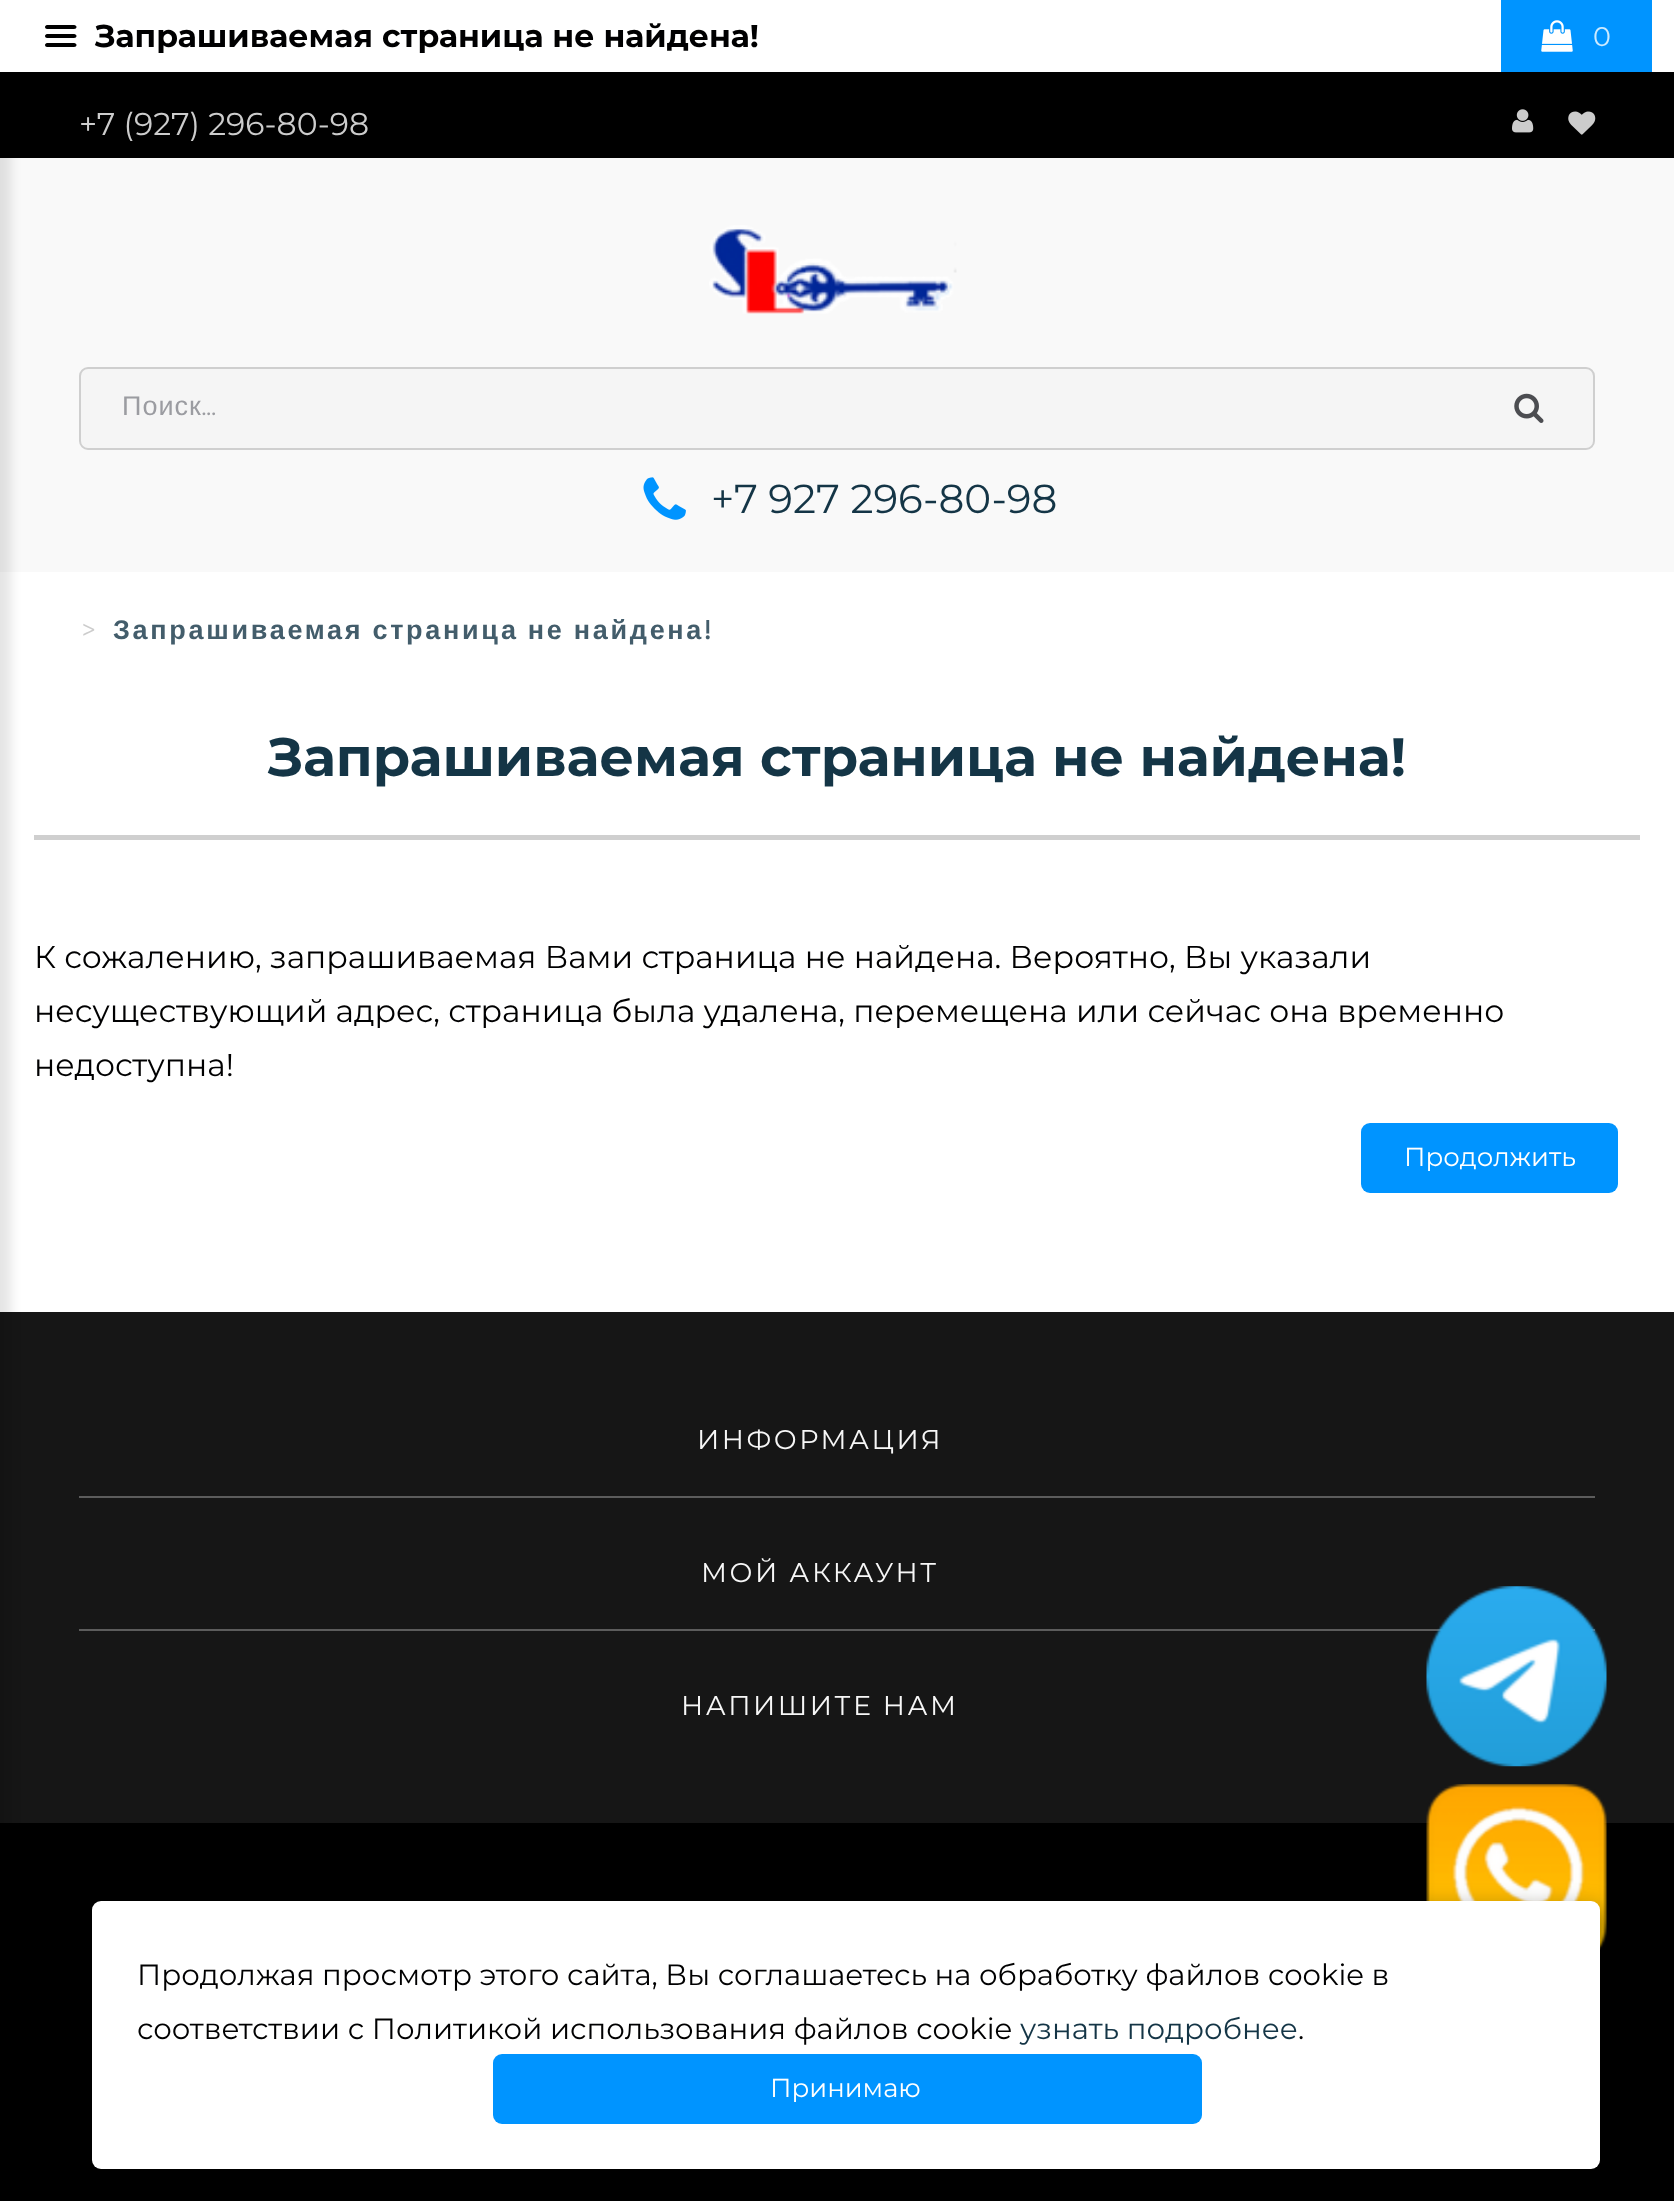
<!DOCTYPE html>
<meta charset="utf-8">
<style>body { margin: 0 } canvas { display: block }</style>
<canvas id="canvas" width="1674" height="2201"></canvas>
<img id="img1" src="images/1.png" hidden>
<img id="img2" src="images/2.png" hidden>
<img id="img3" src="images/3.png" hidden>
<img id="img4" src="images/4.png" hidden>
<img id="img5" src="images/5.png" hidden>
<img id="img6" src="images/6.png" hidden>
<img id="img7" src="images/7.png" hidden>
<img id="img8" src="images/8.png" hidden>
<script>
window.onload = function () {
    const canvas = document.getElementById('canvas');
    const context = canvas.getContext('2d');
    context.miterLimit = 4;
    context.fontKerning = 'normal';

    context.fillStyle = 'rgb(0, 0, 0)';
    context.fillRect(0, 0, 1674, 2201);
    context.fillStyle = 'rgb(255, 255, 255)';
    context.fillRect(0, 572, 1674, 740);
    context.fillStyle = 'rgb(249, 249, 249)';
    context.fillRect(0, 158, 1674, 414);
    context.fillStyle = 'rgb(22, 22, 22)';
    context.fillRect(0, 1312, 1674, 511);
    context.fillStyle = 'rgba(0, 0, 0, 0.1)';
    context.filter = 'blur(5.5px)';
    context.beginPath();
    context.rect(-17, -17, 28, 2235);
    context.fill();
    context.filter = 'none';
    context.fillStyle = 'rgb(255, 255, 255)';
    context.fillRect(0, 0, 1674, 72);
    context.fillStyle = 'rgb(0, 0, 0)';
    context.beginPath();
    context.moveTo(74, 38);
    context.lineTo(47, 38);
    context.bezierCurveTo(46, 38, 45, 37, 45, 36);
    context.bezierCurveTo(45, 35, 46, 34, 47, 34);
    context.lineTo(74, 34);
    context.bezierCurveTo(75.5, 34, 76.5, 35, 76.5, 36);
    context.bezierCurveTo(76.5, 37, 75.5, 38, 74, 38);
    context.closePath();
    context.moveTo(74, 47);
    context.lineTo(47, 47);
    context.bezierCurveTo(46, 47, 45, 46, 45, 45);
    context.bezierCurveTo(45, 44, 46, 43, 47, 43);
    context.lineTo(74, 43);
    context.bezierCurveTo(75.5, 43, 76.5, 44, 76.5, 45);
    context.bezierCurveTo(76.5, 46, 75.5, 47, 74, 47);
    context.closePath();
    context.moveTo(74, 29);
    context.lineTo(47, 29);
    context.bezierCurveTo(46, 29, 45, 28, 45, 27);
    context.bezierCurveTo(45, 26, 46, 25, 47, 25);
    context.lineTo(74, 25);
    context.bezierCurveTo(75.5, 25, 76.5, 26, 76.5, 27);
    context.bezierCurveTo(76.5, 28, 75.5, 29, 74, 29);
    context.closePath();
    context.fill();
    context.fillStyle = 'rgb(0, 148, 255)';
    context.fillRect(1501, 0, 151, 72);
    context.drawImage(document.getElementById('img1'), 1541, 20, 32, 32);
    context.drawImage(document.getElementById('img2'), 1512, 109, 22, 24);
    context.drawImage(document.getElementById('img3'), 1568, 111, 28, 24);
    context.drawImage(document.getElementById('img4'), 709, 225, 248, 89);
    context.fillStyle = 'rgb(245, 245, 245)';
    context.beginPath();
    context.roundRect(80, 368, 1514, 81, 8);
    context.fill();
    context.strokeStyle = 'rgb(207, 207, 207)';
    context.lineWidth = 2;
    context.stroke();
    context.drawImage(document.getElementById('img5'), 1514, 393, 30, 30);
    context.drawImage(document.getElementById('img6'), 643, 477, 43, 43);
    context.fillStyle = 'rgb(207, 207, 207)';
    context.fillRect(34, 835, 1606, 5);
    context.fillStyle = 'rgb(0, 148, 255)';
    context.beginPath();
    context.roundRect(1361, 1123, 257, 70, 9);
    context.fill();
    context.fillStyle = 'rgb(92, 92, 92)';
    context.fillRect(79, 1496, 1516, 2);
    context.fillRect(79, 1629, 1516, 2);
    context.drawImage(document.getElementById('img7'), 1426, 1586, 181, 181);
    context.drawImage(document.getElementById('img8'), 1426, 1784, 181, 166);
    context.fillStyle = 'rgba(0, 0, 0, 0.4)';
    context.filter = 'blur(11px)';
    context.beginPath();
    context.roundRect(97, 1908, 1507, 268, 9);
    context.fill();
    context.filter = 'none';
    context.fillStyle = 'rgb(255, 255, 255)';
    context.beginPath();
    context.roundRect(92, 1901, 1508, 268, 9);
    context.fill();
    context.fillStyle = 'rgb(0, 148, 255)';
    context.beginPath();
    context.roundRect(493, 2054, 709, 70, 9);
    context.fill();
    context.font = 'bold 31.5px Montserrat';
    context.fillStyle = 'rgb(0, 0, 1)';
    context.fillText('Запрашиваемая страница не найдена!', 95, 47);
    context.font = '27px Montserrat';
    context.fillStyle = 'rgb(204, 234, 255)';
    context.fillText('0', 1593, 46);
    context.font = '31.5px Montserrat';
    context.fillStyle = 'rgb(204, 204, 204)';
    context.fillText('+7 (927) 296-80-98', 79, 135);
    context.letterSpacing = '1px';
    context.font = '27px Liberation Sans';
    context.fillStyle = 'rgb(155, 156, 161)';
    context.fillText('Поиск', 122, 415);
    context.font = '300 27px Hind';
    context.fillText('...', 202, 415);
    context.letterSpacing = '0px';
    context.font = '40.5px Montserrat';
    context.fillStyle = 'rgb(20, 53, 70)';
    context.fillText('+7 927 296-80-98', 711, 513);
    context.letterSpacing = '2.7px';
    context.font = '300 27px Hind';
    context.fillStyle = 'rgb(204, 204, 204)';
    context.fillText('>', 82, 639);
    context.wordSpacing = '-1px';
    context.font = 'bold 27px Liberation Sans';
    context.fillStyle = 'rgb(67, 93, 107)';
    context.fillText('Запрашиваемая страница не найдена', 113, 639);
    context.wordSpacing = '0px';
    context.font = 'bold 27px Hind';
    context.fillText('!', 704, 639);
    context.letterSpacing = '0px';
    context.font = 'bold 54px Montserrat';
    context.fillStyle = 'rgb(20, 53, 70)';
    context.fillText('Запрашиваемая страница не найдена!', 268, 776);
    context.font = '31.5px Montserrat';
    context.fillStyle = 'rgb(0, 0, 1)';
    context.fillText('К сожалению, запрашиваемая Вами страница не найдена. Вероятно, Вы указали', 34, 968);
    context.fillText('несуществующий адрес, страница была удалена, перемещена или сейчас она временно', 34, 1022);
    context.fillText('недоступна!', 34, 1076);
    context.font = '26px Montserrat';
    context.fillStyle = 'rgb(255, 255, 255)';
    context.fillText('Продолжить', 1404, 1166);
    context.letterSpacing = '2.5px';
    context.font = '27px Montserrat';
    context.fillStyle = 'rgb(247, 247, 247)';
    context.fillText('ИНФОРМАЦИЯ', 697, 1449);
    context.fillText('МОЙ АККАУНТ', 701, 1582);
    context.fillText('НАПИШИТЕ НАМ', 681, 1715);
    context.letterSpacing = '0px';
    context.font = '29.25px Montserrat';
    context.fillStyle = 'rgb(0, 0, 1)';
    context.fillText('Продолжая просмотр этого сайта, Вы соглашаетесь на обработку файлов cookie в', 137, 1985);
    context.fillText('соответствии с Политикой использования файлов cookie', 137, 2039);
    context.fillStyle = 'rgb(20, 53, 70)';
    context.fillText('узнать подробнее', 1020, 2039);
    context.fillStyle = 'rgb(0, 0, 1)';
    context.fillText('.', 1298, 2039);
    context.font = '26px Montserrat';
    context.fillStyle = 'rgb(255, 255, 255)';
    context.fillText('Принимаю', 770, 2097);
};
</script>
